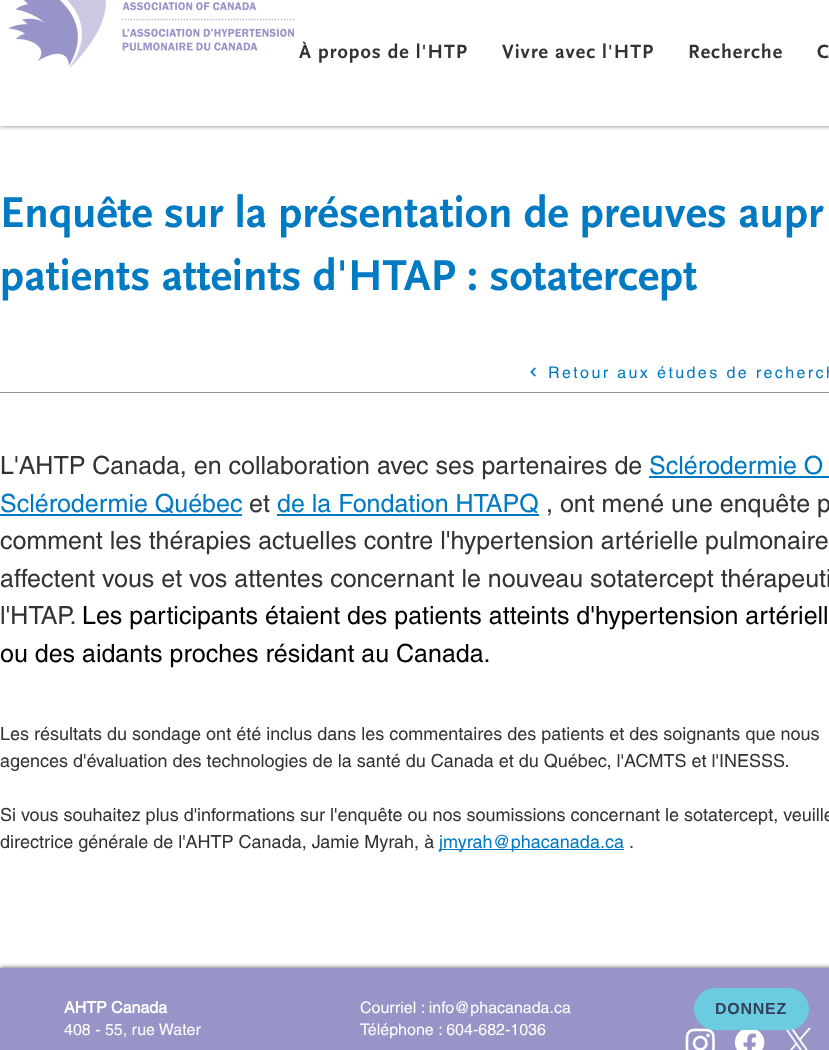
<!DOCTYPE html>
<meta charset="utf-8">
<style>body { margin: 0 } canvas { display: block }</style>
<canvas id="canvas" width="829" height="1050"></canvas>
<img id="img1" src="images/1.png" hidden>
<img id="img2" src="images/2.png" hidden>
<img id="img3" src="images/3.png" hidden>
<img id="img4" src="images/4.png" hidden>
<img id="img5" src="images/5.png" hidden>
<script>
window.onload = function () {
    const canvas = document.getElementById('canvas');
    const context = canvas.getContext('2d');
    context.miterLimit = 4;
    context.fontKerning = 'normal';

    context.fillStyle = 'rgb(255, 255, 255)';
    context.fillRect(0, 0, 829, 1050);
    context.save();
    context.beginPath();
    context.rect(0, 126, 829, 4);
    context.clip();
    context.fillStyle = 'rgba(0, 0, 0, 0.5)';
    context.filter = 'blur(2.5px)';
    context.beginPath();
    context.rect(0, -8, 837, 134);
    context.fill();
    context.filter = 'none';
    context.restore();
    context.drawImage(document.getElementById('img1'), 8, 0, 286, 69);
    context.drawImage(document.getElementById('img2'), 530, 367, 6, 10);
    context.fillStyle = 'rgb(148, 147, 147)';
    context.fillRect(0, 392, 829, 1);
    context.fillStyle = 'rgb(0, 121, 194)';
    context.fillRect(649, 476, 180, 2);
    context.fillRect(0, 514, 242, 2);
    context.fillRect(277, 514, 262, 2);
    context.fillRect(439, 849, 185, 1);
    context.fillStyle = 'rgba(0, 0, 0, 0.7)';
    context.filter = 'blur(2.5px)';
    context.beginPath();
    context.rect(0, 968, 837, 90);
    context.fill();
    context.filter = 'none';
    context.fillStyle = 'rgb(152, 148, 199)';
    context.fillRect(0, 968, 829, 82);
    context.drawImage(document.getElementById('img3'), 685, 1028, 30, 22);
    context.drawImage(document.getElementById('img4'), 734, 1030, 31, 20);
    context.drawImage(document.getElementById('img5'), 786, 1027, 25, 23);
    context.fillStyle = 'rgb(107, 203, 225)';
    context.beginPath();
    context.roundRect(694, 988, 115, 42, 21);
    context.fill();
    context.letterSpacing = '1px';
    context.font = 'bold 20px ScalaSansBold';
    context.fillStyle = 'rgb(51, 51, 51)';
    context.fillText('À propos de l\'HTP', 299, 58);
    context.fillText('Vivre avec l\'HTP', 502, 58);
    context.fillText('Recherche', 688, 58);
    context.fillText('C', 817, 58);
    context.letterSpacing = '0px';
    context.font = 'bold 45px ScalaSansBold';
    context.fillStyle = 'rgb(0, 122, 194)';
    context.fillText('Enquête sur la présentation de preuves aupr', 0, 227);
    context.fillText('patients atteints d\'HTAP : sotatercept', 0, 290);
    context.letterSpacing = '2.4px';
    context.font = '16px helvetica';
    context.fillText('Retour aux études de recherch', 548, 378);
    context.letterSpacing = '0px';
    context.font = '25px helvetica';
    context.fillStyle = 'rgb(51, 51, 51)';
    context.fillText('L\'AHTP Canada, en collaboration avec ses partenaires de', 0, 474);
    context.fillStyle = 'rgb(0, 122, 194)';
    context.fillText('Sclérodermie O', 649, 474);
    context.fillText('Sclérodermie Québec', 0, 512);
    context.fillStyle = 'rgb(51, 51, 51)';
    context.fillText('et', 249, 512);
    context.fillStyle = 'rgb(0, 122, 194)';
    context.fillText('de la Fondation HTAPQ', 277, 512);
    context.fillStyle = 'rgb(51, 51, 51)';
    context.fillText(', ont mené une enquête p', 546, 512);
    context.fillText('comment les thérapies actuelles contre l\'hypertension artérielle pulmonaire', 0, 549);
    context.fillText('affectent vous et vos attentes concernant le nouveau sotatercept thérapeuti', 0, 587);
    context.fillText('l\'HTAP.', 0, 624);
    context.fillStyle = 'rgb(0, 0, 0)';
    context.fillText('Les participants étaient des patients atteints d\'hypertension artériell', 82, 624);
    context.fillText('ou des aidants proches résidant au Canada.', 0, 662);
    context.font = '18px helvetica';
    context.fillStyle = 'rgb(51, 51, 51)';
    context.fillText('Les résultats du sondage ont été inclus dans les commentaires des patients et des soignants que nous', 0, 740);
    context.fillText('agences d\'évaluation des technologies de la santé du Canada et du Québec, l\'ACMTS et l\'INESSS.', 0, 767);
    context.fillText('Si vous souhaitez plus d\'informations sur l\'enquête ou nos soumissions concernant le sotatercept, veuille', 0, 821);
    context.fillText('directrice générale de l\'AHTP Canada, Jamie Myrah, à', 0, 848);
    context.fillStyle = 'rgb(0, 122, 194)';
    context.fillText('jmyrah@phacanada.ca', 439, 848);
    context.fillStyle = 'rgb(51, 51, 51)';
    context.fillText('.', 629, 848);
    context.font = 'bold 16px helvetica';
    context.fillStyle = 'rgb(255, 255, 255)';
    context.fillText('AHTP Canada', 64, 1013);
    context.font = '16px helvetica';
    context.fillText('408 - 55, rue Water', 64, 1035);
    context.fillText('Courriel : info@phacanada.ca', 360, 1013);
    context.fillText('Téléphone : 604-682-1036', 360, 1035);
    context.letterSpacing = '0.75px';
    context.font = 'bold 16px Liberation Sans';
    context.fillStyle = 'rgb(50, 65, 88)';
    context.fillText('DONNEZ', 715, 1014);
};
</script>
